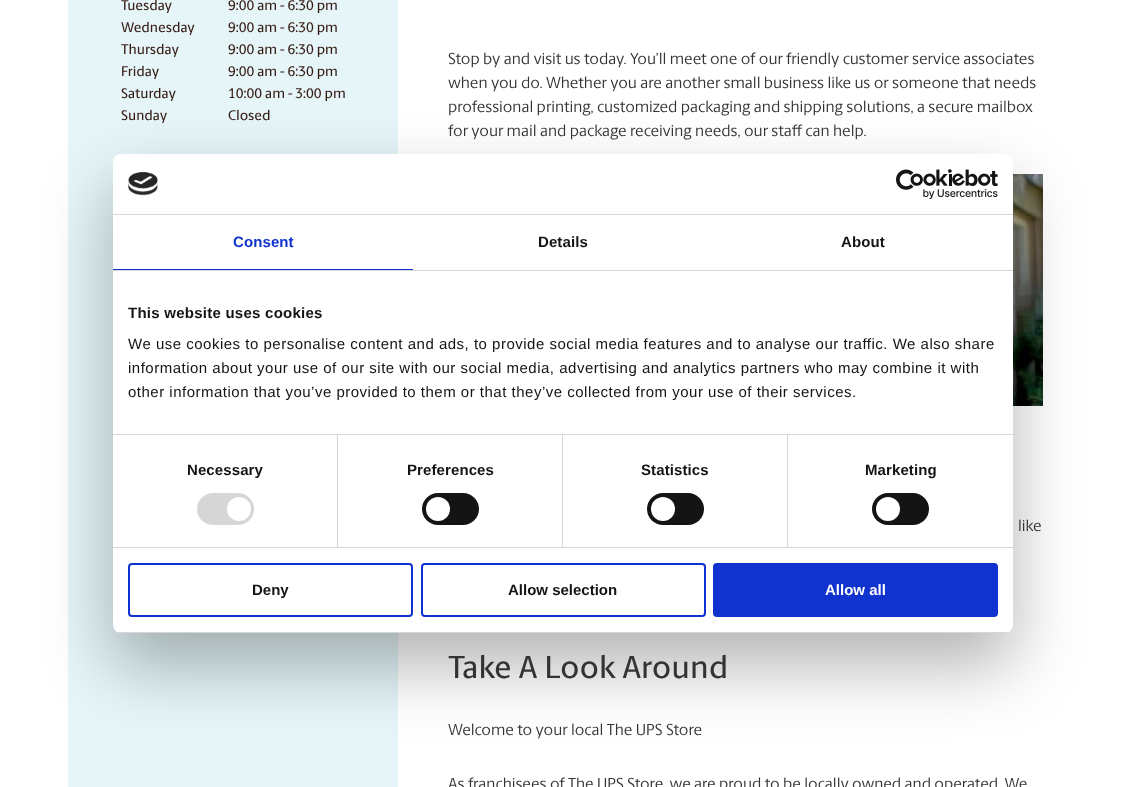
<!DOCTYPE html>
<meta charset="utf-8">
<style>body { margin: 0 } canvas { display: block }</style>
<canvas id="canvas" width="1126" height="787"></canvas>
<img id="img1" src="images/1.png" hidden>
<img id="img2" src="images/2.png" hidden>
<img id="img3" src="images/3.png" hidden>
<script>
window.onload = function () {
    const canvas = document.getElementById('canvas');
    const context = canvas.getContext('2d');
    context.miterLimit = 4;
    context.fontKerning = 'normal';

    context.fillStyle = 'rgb(255, 255, 255)';
    context.fillRect(0, 0, 1126, 787);
    context.fillStyle = 'rgb(229, 245, 248)';
    context.fillRect(68, 0, 330, 787);
    context.drawImage(document.getElementById('img1'), 1013, 174, 30, 232);
    context.fillStyle = 'rgba(0, 0, 0, 0.3)';
    context.filter = 'blur(34px)';
    context.beginPath();
    context.roundRect(113, 186, 900, 479, 8);
    context.fill();
    context.filter = 'none';
    context.fillStyle = 'rgb(255, 255, 255)';
    context.beginPath();
    context.roundRect(113, 154, 900, 479, 8);
    context.fill();
    context.fillStyle = 'rgb(214, 214, 214)';
    context.fillRect(113, 214, 900, 1);
    context.drawImage(document.getElementById('img2'), 128, 172, 30, 24);
    context.drawImage(document.getElementById('img3'), 896, 169, 102, 30);
    context.fillRect(113, 270, 900, 1);
    context.fillStyle = 'rgb(16, 50, 207)';
    context.fillRect(113, 269, 300, 1);
    context.fillStyle = 'rgb(214, 214, 214)';
    context.fillRect(113, 434, 900, 1);
    context.fillRect(113, 547, 900, 1);
    context.fillRect(337, 435, 1, 112);
    context.beginPath();
    context.roundRect(197, 493, 57, 32, 16);
    context.fill();
    context.fillStyle = 'rgb(255, 255, 255)';
    context.beginPath();
    context.arc(239, 509, 12, 0, 2 * Math.PI);
    context.fill();
    context.fillStyle = 'rgb(214, 214, 214)';
    context.fillRect(562, 435, 1, 112);
    context.fillStyle = 'rgb(20, 20, 20)';
    context.beginPath();
    context.roundRect(422, 493, 57, 32, 16);
    context.fill();
    context.fillStyle = 'rgb(255, 255, 255)';
    context.beginPath();
    context.arc(438, 509, 12, 0, 2 * Math.PI);
    context.fill();
    context.fillStyle = 'rgb(214, 214, 214)';
    context.fillRect(787, 435, 1, 112);
    context.fillStyle = 'rgb(20, 20, 20)';
    context.beginPath();
    context.roundRect(647, 493, 57, 32, 16);
    context.fill();
    context.fillStyle = 'rgb(255, 255, 255)';
    context.beginPath();
    context.arc(663, 509, 12, 0, 2 * Math.PI);
    context.fill();
    context.fillStyle = 'rgb(20, 20, 20)';
    context.beginPath();
    context.roundRect(872, 493, 57, 32, 16);
    context.fill();
    context.fillStyle = 'rgb(255, 255, 255)';
    context.beginPath();
    context.arc(888, 509, 12, 0, 2 * Math.PI);
    context.fill();
    context.save();
    context.beginPath();
    context.roundRect(113, 154, 900, 479, 8);
    context.clip();
    context.fillStyle = 'rgb(214, 214, 214)';
    context.fillRect(113, 632, 900, 1);
    context.restore();
    context.beginPath();
    context.roundRect(129, 564, 283, 52, 3);
    context.strokeStyle = 'rgb(16, 50, 207)';
    context.lineWidth = 2;
    context.stroke();
    context.beginPath();
    context.roundRect(422, 564, 283, 52, 3);
    context.stroke();
    context.fillStyle = 'rgb(16, 50, 207)';
    context.beginPath();
    context.roundRect(714, 564, 283, 52, 3);
    context.fill();
    context.stroke();
    context.font = '500 14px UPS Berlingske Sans';
    context.fillStyle = 'rgb(53, 28, 20)';
    context.fillText('Tuesday', 121, 10);
    context.fillText('9:00 am - 6:30 pm', 228, 10);
    context.fillText('Wednesday', 121, 32);
    context.fillText('9:00 am - 6:30 pm', 228, 32);
    context.fillText('Thursday', 121, 54);
    context.fillText('9:00 am - 6:30 pm', 228, 54);
    context.fillText('Friday', 121, 76);
    context.fillText('9:00 am - 6:30 pm', 228, 76);
    context.fillText('Saturday', 121, 98);
    context.fillText('10:00 am - 3:00 pm', 228, 98);
    context.fillText('Sunday', 121, 120);
    context.fillText('Closed', 228, 120);
    context.font = '16px UPS Berlingske Sans';
    context.fillStyle = 'rgb(51, 51, 51)';
    context.fillText('Stop by and visit us today. You’ll meet one of our friendly customer service associates', 448, 64);
    context.fillText('when you do. Whether you are another small business like us or someone that needs', 448, 88);
    context.fillText('professional printing, customized packaging and shipping solutions, a secure mailbox', 448, 112);
    context.fillText('for your mail and package receiving needs, our staff can help.', 448, 136);
    context.fillText('like', 1018, 531);
    context.font = '500 32px UPS Berlingske Sans';
    context.fillText('Take A Look Around', 448, 678);
    context.font = '16px UPS Berlingske Sans';
    context.fillText('Welcome to your local The UPS Store', 448, 735);
    context.fillText('As franchisees of The UPS Store, we are proud to be locally owned and operated. We', 448, 789);
    context.letterSpacing = '0.1px';
    context.font = 'bold 15px Liberation Sans';
    context.fillStyle = 'rgb(16, 50, 207)';
    context.fillText('Consent', 233, 247);
    context.fillStyle = 'rgb(20, 20, 20)';
    context.fillText('Details', 538, 247);
    context.fillText('About', 841, 247);
    context.letterSpacing = '0.25px';
    context.fillText('This website uses cookies', 128, 318);
    context.letterSpacing = '0.5px';
    context.font = '15px Liberation Sans';
    context.fillText('We use cookies to personalise content and ads, to provide social media features and to analyse our traffic. We also share', 128, 349);
    context.fillText('information about your use of our site with our social media, advertising and analytics partners who may combine it with', 128, 373);
    context.fillText('other information that you’ve provided to them or that they’ve collected from your use of their services.', 128, 397);
    context.letterSpacing = '0.1px';
    context.font = 'bold 15px Liberation Sans';
    context.fillText('Necessary', 187, 475);
    context.fillText('Preferences', 407, 475);
    context.fillText('Statistics', 641, 475);
    context.fillText('Marketing', 865, 475);
    context.letterSpacing = '0px';
    context.fillText('Deny', 252, 595);
    context.fillText('Allow selection', 508, 595);
    context.fillStyle = 'rgb(255, 255, 255)';
    context.fillText('Allow all', 825, 595);
};
</script>
